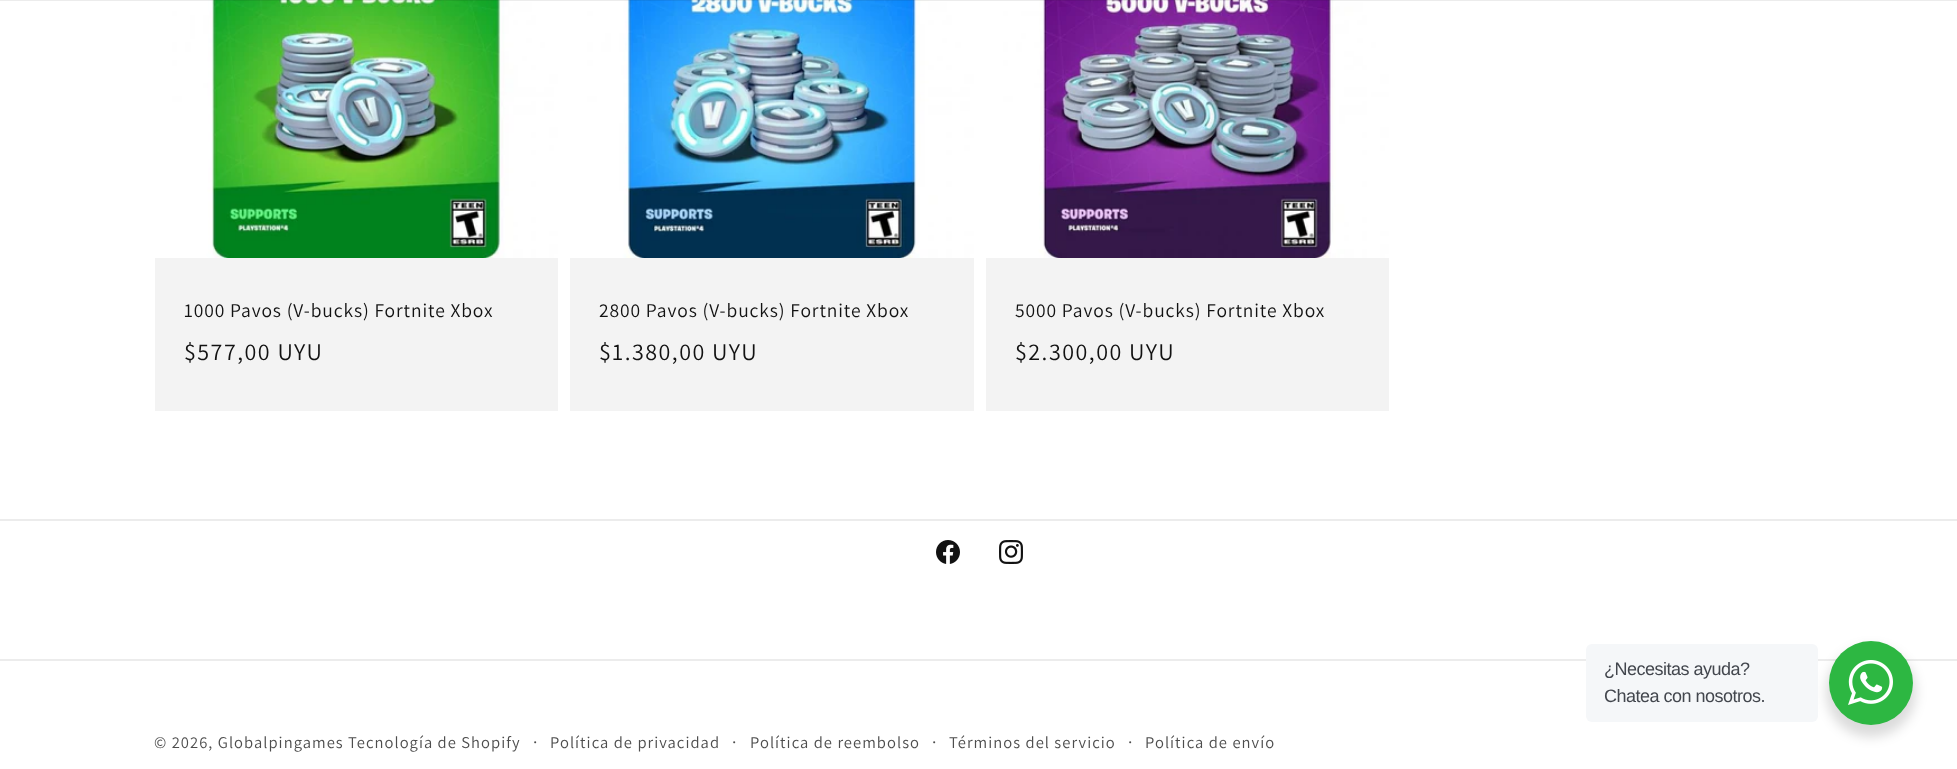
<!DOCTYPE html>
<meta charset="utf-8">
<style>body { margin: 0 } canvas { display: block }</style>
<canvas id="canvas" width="1957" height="769"></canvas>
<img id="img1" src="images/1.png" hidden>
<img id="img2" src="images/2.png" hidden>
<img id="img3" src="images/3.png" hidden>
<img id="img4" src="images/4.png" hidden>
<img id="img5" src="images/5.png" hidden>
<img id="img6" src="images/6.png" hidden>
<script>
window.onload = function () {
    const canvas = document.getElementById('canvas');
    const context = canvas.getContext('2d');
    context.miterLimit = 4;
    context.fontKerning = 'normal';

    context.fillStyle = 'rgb(255, 255, 255)';
    context.fillRect(0, 0, 1957, 769);
    context.drawImage(document.getElementById('img1'), 155, 0, 403, 258);
    context.drawImage(document.getElementById('img2'), 570, 0, 404, 258);
    context.drawImage(document.getElementById('img3'), 986, 0, 403, 258);
    context.fillStyle = 'rgba(18, 18, 18, 0.08)';
    context.fillRect(0, 0, 1957, 1);
    context.fillStyle = 'rgb(243, 243, 243)';
    context.fillRect(155, 258, 403, 153);
    context.fillRect(570, 258, 404, 153);
    context.fillRect(986, 258, 403, 153);
    context.fillStyle = 'rgb(236, 236, 236)';
    context.fillRect(0, 659, 1957, 2);
    context.fillStyle = 'rgba(0, 0, 0, 0.14)';
    context.filter = 'blur(6px)';
    context.beginPath();
    context.roundRect(1826, 647, 90, 90, 45);
    context.fill();
    context.filter = 'none';
    context.fillStyle = 'rgb(245, 247, 249)';
    context.beginPath();
    context.roundRect(1586, 644, 232, 78, 6);
    context.fill();
    context.fillStyle = 'rgb(45, 183, 66)';
    context.beginPath();
    context.arc(1871, 683, 42, 0, 2 * Math.PI);
    context.fill();
    context.drawImage(document.getElementById('img4'), 1848, 660, 45, 45);
    context.fillStyle = 'rgb(236, 236, 236)';
    context.fillRect(0, 519, 1957, 2);
    context.drawImage(document.getElementById('img5'), 936, 540, 24, 24);
    context.drawImage(document.getElementById('img6'), 999, 540, 24, 24);
    context.letterSpacing = '0.9px';
    context.font = '19.5px Assistant';
    context.fillStyle = 'rgb(18, 18, 18)';
    context.fillText('1000 Pavos (V-bucks) Fortnite Xbox', 184, 317);
    context.letterSpacing = '1.5px';
    context.font = '24px Assistant';
    context.fillText('$577,00 UYU', 184, 360);
    context.letterSpacing = '0.9px';
    context.font = '19.5px Assistant';
    context.fillText('2800 Pavos (V-bucks) Fortnite Xbox', 599, 317);
    context.letterSpacing = '1.5px';
    context.font = '24px Assistant';
    context.fillText('$1.380,00 UYU', 599, 360);
    context.letterSpacing = '0.9px';
    context.font = '19.5px Assistant';
    context.fillText('5000 Pavos (V-bucks) Fortnite Xbox', 1015, 317);
    context.letterSpacing = '1.5px';
    context.font = '24px Assistant';
    context.fillText('$2.300,00 UYU', 1015, 360);
    context.letterSpacing = '-0.5px';
    context.font = '18px Liberation Sans';
    context.fillStyle = 'rgb(67, 71, 78)';
    context.fillText('¿Necesitas ayuda?', 1604, 675);
    context.fillText('Chatea con nosotros.', 1604, 702);
    context.letterSpacing = '1.05px';
    context.font = '16.5px Assistant';
    context.fillStyle = 'rgb(77, 77, 77)';
    context.fillText('© 2026, Globalpingames', 154, 748);
    context.fillText('Tecnología de Shopify', 348, 748);
    context.font = '18px Assistant';
    context.fillText('·', 533, 748);
    context.font = '16.5px Assistant';
    context.fillText('Política de privacidad', 550, 748);
    context.font = '18px Assistant';
    context.fillText('·', 732, 748);
    context.font = '16.5px Assistant';
    context.fillText('Política de reembolso', 750, 748);
    context.font = '18px Assistant';
    context.fillText('·', 932, 748);
    context.font = '16.5px Assistant';
    context.fillText('Términos del servicio', 949, 748);
    context.font = '18px Assistant';
    context.fillText('·', 1128, 748);
    context.font = '16.5px Assistant';
    context.fillText('Política de envío', 1145, 748);
};
</script>
